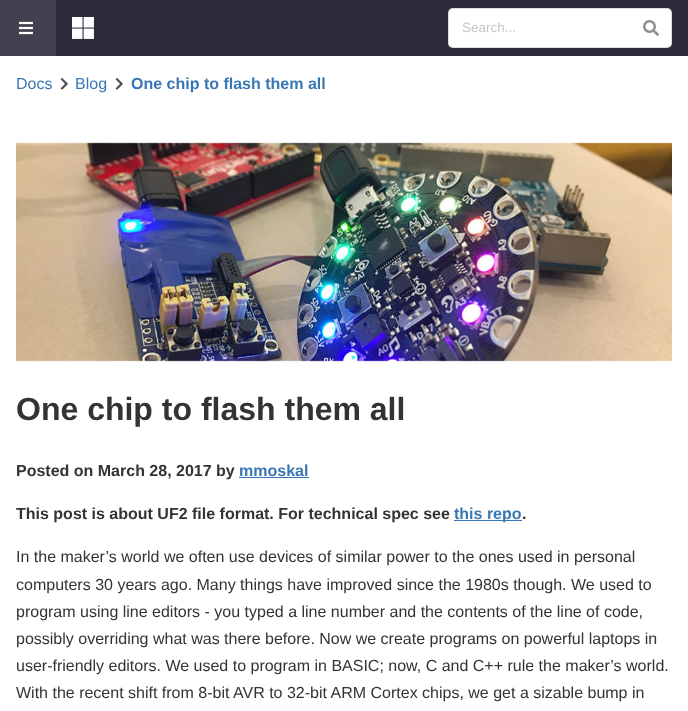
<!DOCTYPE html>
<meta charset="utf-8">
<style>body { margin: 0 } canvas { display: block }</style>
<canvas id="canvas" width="688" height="711"></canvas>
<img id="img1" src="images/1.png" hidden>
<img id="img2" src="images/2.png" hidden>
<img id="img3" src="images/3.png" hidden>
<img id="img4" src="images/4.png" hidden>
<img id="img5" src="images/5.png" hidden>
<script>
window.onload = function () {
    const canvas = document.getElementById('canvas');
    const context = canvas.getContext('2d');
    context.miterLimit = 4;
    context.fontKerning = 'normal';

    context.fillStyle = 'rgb(255, 255, 255)';
    context.fillRect(0, 0, 688, 711);
    context.fillStyle = 'rgb(48, 43, 59)';
    context.fillRect(56, 0, 632, 56);
    context.fillStyle = 'rgb(69, 64, 79)';
    context.fillRect(0, 0, 56, 56);
    context.drawImage(document.getElementById('img1'), 19, 21, 14, 14);
    context.drawImage(document.getElementById('img2'), 72, 17, 22, 22);
    context.fillStyle = 'rgb(255, 255, 255)';
    context.beginPath();
    context.roundRect(448, 8, 224, 40, 5);
    context.fill();
    context.beginPath();
    context.roundRect(448.5, 8.5, 223, 39, 4.5);
    context.strokeStyle = 'rgba(34, 36, 38, 0.15)';
    context.stroke();
    context.drawImage(document.getElementById('img3'), 643, 20, 16, 16);
    context.drawImage(document.getElementById('img4'), 60, 78, 8, 12);
    context.drawImage(document.getElementById('img4'), 115, 78, 8, 12);
    context.drawImage(document.getElementById('img5'), 16, 142, 656, 220);
    context.fillStyle = 'rgb(57, 119, 180)';
    context.fillRect(239, 477, 70, 1);
    context.fillRect(454, 520, 68, 1);
    context.font = '13.5px Liberation Sans';
    context.fillStyle = 'rgb(199, 199, 199)';
    context.fillText('Search...', 462, 32);
    context.font = '16px Liberation Sans';
    context.fillStyle = 'rgb(57, 119, 180)';
    context.fillText('Docs', 16, 89);
    context.fillText('Blog', 75, 89);
    context.font = 'bold 16px Liberation Sans';
    context.fillText('One chip to flash them all', 131, 89);
    context.font = 'bold 32px Liberation Sans';
    context.fillStyle = 'rgb(51, 51, 51)';
    context.fillText('One chip to flash them all', 16, 420);
    context.font = 'bold 16px Liberation Sans';
    context.fillText('Posted on March 28, 2017 by', 16, 476);
    context.fillStyle = 'rgb(57, 119, 180)';
    context.fillText('mmoskal', 239, 476);
    context.fillStyle = 'rgb(51, 51, 51)';
    context.fillText('This post is about UF2 file format. For technical spec see', 16, 519);
    context.fillStyle = 'rgb(57, 119, 180)';
    context.fillText('this repo', 454, 519);
    context.fillStyle = 'rgb(51, 51, 51)';
    context.fillText('.', 522, 519);
    context.font = '16px Liberation Sans';
    context.fillText('In the maker’s world we often use devices of similar power to the ones used in personal', 16, 562);
    context.fillText('computers 30 years ago. Many things have improved since the 1980s though. We used to', 16, 590);
    context.fillText('program using line editors - you typed a line number and the contents of the line of code,', 16, 617);
    context.fillText('possibly overriding what was there before. Now we create programs on powerful laptops in', 16, 644);
    context.fillText('user-friendly editors. We used to program in BASIC; now, C and C++ rule the maker’s world.', 16, 671);
    context.fillText('With the recent shift from 8-bit AVR to 32-bit ARM Cortex chips, we get a sizable bump in', 16, 698);
};
</script>
